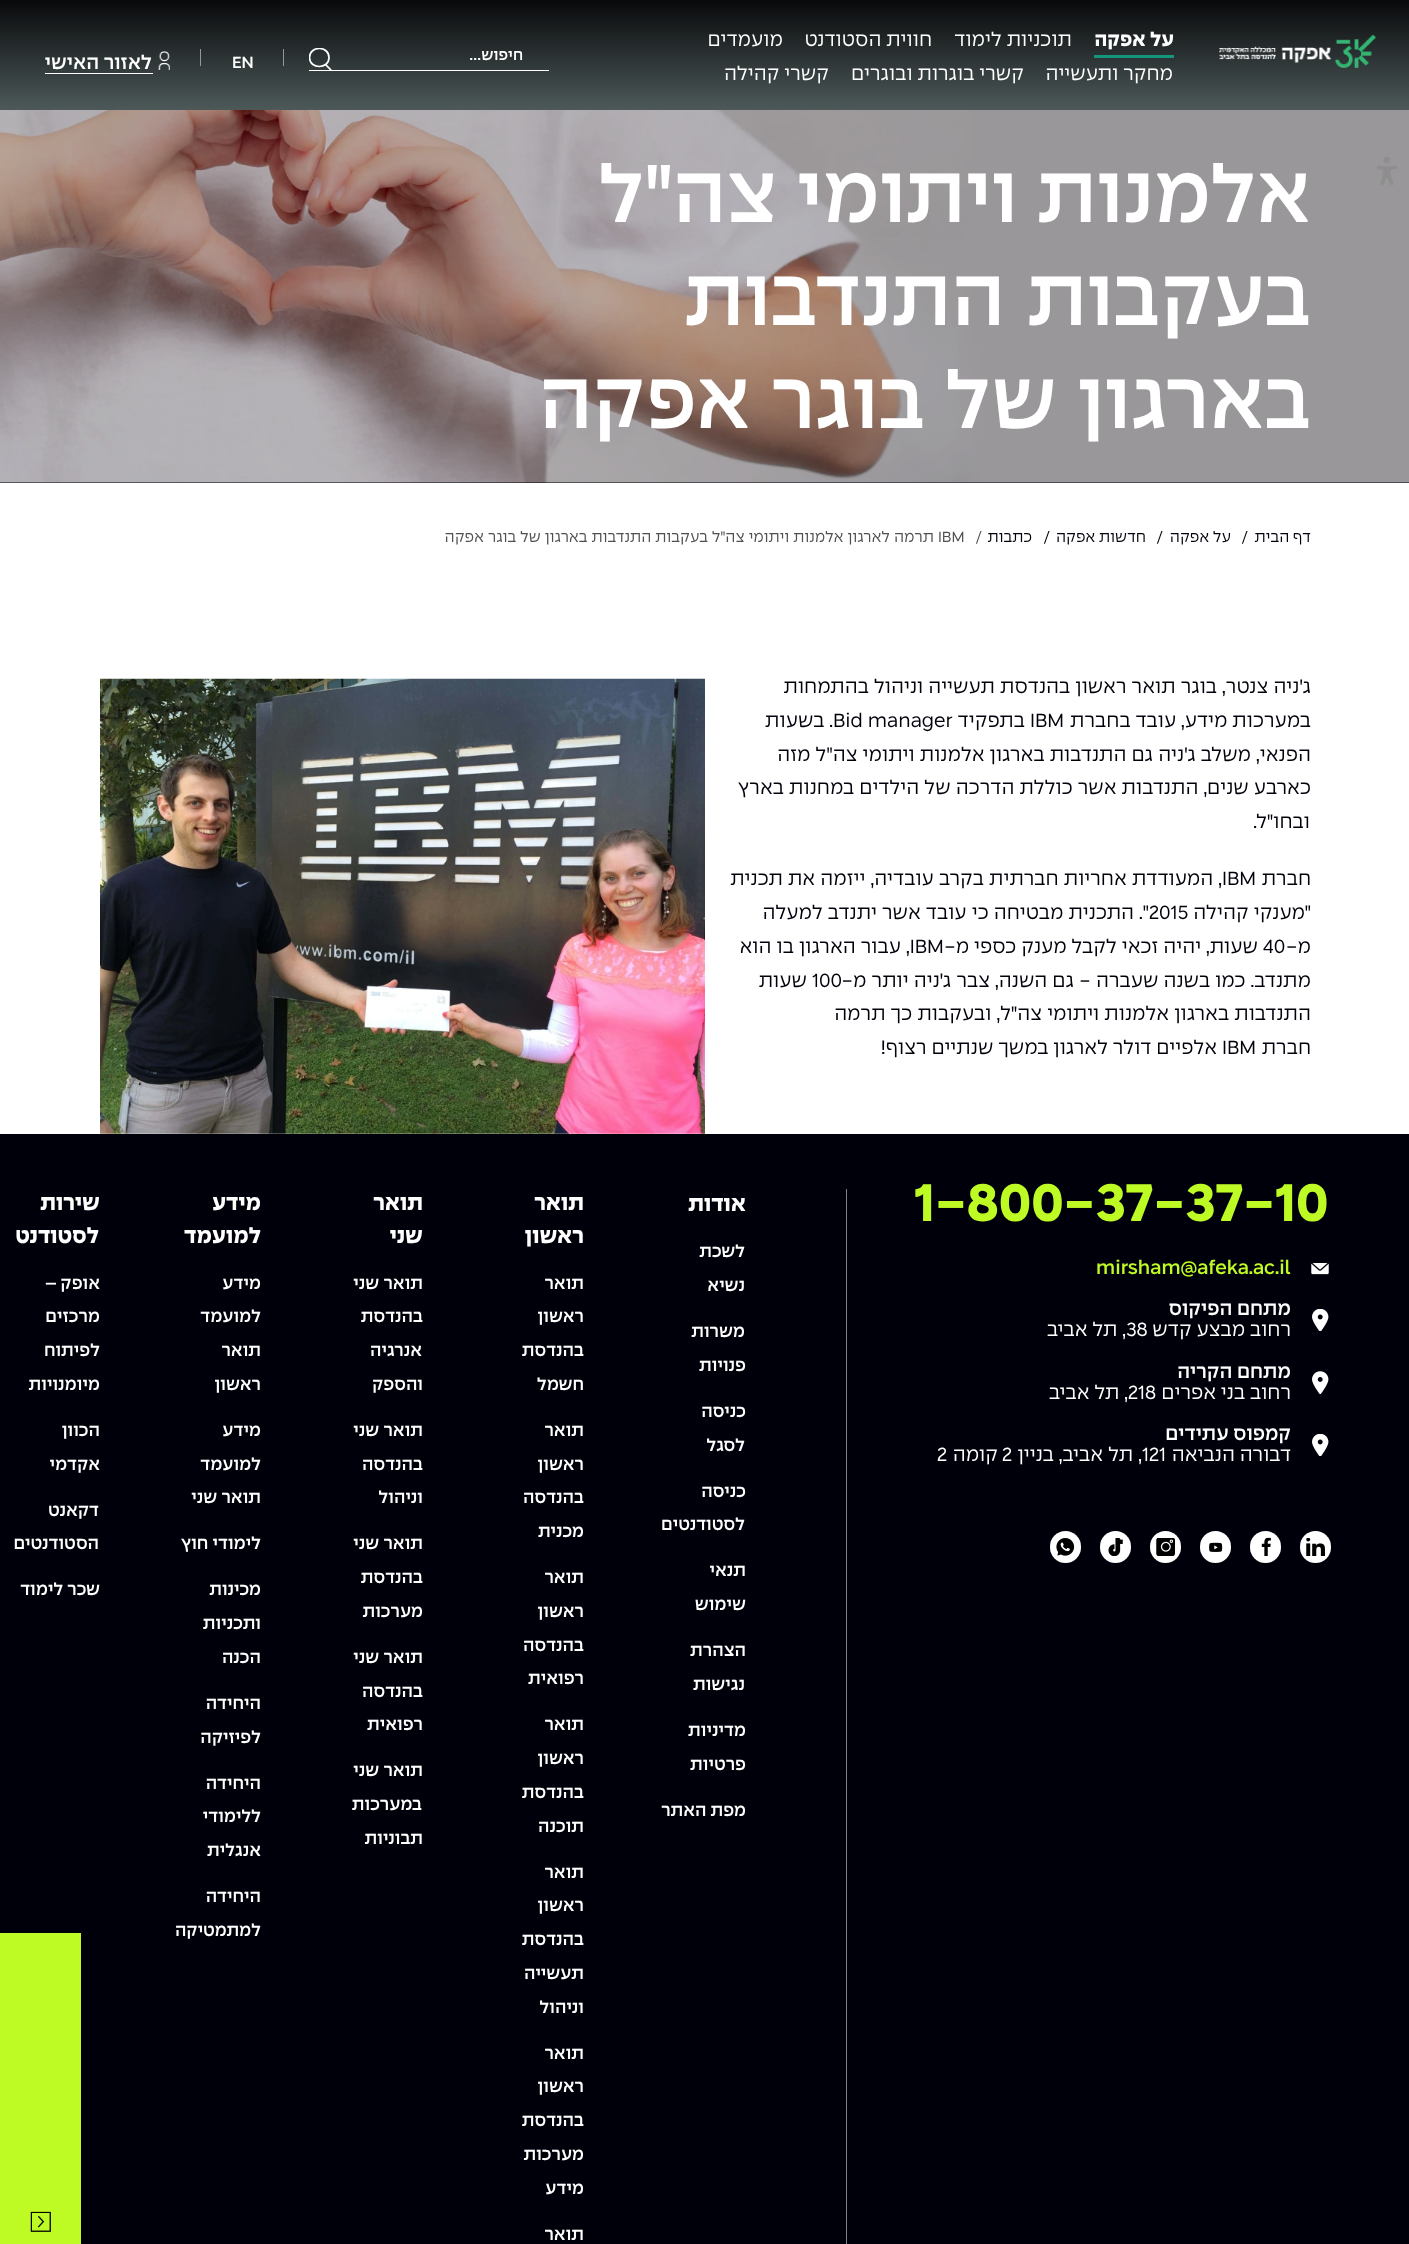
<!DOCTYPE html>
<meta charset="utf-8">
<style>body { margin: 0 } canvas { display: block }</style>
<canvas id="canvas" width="1409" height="2244"></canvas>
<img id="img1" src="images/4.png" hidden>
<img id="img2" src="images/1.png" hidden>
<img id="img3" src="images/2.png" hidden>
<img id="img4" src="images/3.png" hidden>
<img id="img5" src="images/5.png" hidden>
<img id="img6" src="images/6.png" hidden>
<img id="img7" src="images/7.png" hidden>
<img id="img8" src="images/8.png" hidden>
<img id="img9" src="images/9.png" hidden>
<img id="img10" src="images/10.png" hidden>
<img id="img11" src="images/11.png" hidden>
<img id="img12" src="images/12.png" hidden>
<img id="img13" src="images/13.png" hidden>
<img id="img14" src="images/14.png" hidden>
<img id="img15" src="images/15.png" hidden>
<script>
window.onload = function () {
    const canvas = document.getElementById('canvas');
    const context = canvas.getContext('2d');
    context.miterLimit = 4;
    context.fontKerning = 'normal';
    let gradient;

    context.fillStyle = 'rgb(255, 255, 255)';
    context.fillRect(0, 0, 1409, 2244);
    context.fillStyle = 'rgb(0, 0, 11)';
    context.fillRect(0, 110, 1409, 373);
    context.drawImage(document.getElementById('img1'), 0, 110, 1409, 373);
    context.drawImage(document.getElementById('img2'), 1377, 156, 20, 29);
    gradient = context.createLinearGradient(705, 110, 705, 0);
    gradient.addColorStop(0, 'rgb(77, 89, 89)');
    gradient.addColorStop(1, 'rgb(8, 9, 11)');
    context.fillStyle = gradient;
    context.fillRect(0, 0, 1409, 110);
    context.drawImage(document.getElementById('img3'), 1219, 35, 158, 33);
    context.fillStyle = 'rgb(20, 150, 125)';
    context.fillRect(1094, 55, 80, 3);
    context.fillStyle = 'rgb(255, 255, 255)';
    context.fillRect(309, 70, 240, 1);
    context.beginPath();
    context.moveTo(326, 65);
    context.lineTo(330.5, 69.5);
    context.strokeStyle = 'rgb(255, 255, 255)';
    context.lineWidth = 1.7;
    context.lineCap = 'square';
    context.stroke();
    context.save();
    context.beginPath();
    context.rect(309, 48, 24, 23);
    context.clip();
    context.beginPath();
    context.moveTo(329, 57.5);
    context.bezierCurveTo(329, 69.5, 309.5, 69.5, 309.5, 57.5);
    context.bezierCurveTo(309.5, 45.5, 329, 45.5, 329, 57.5);
    context.closePath();
    context.lineCap = 'butt';
    context.stroke();
    context.restore();
    context.fillStyle = 'rgb(151, 151, 151)';
    context.fillRect(283, 49, 1, 17);
    context.fillRect(200, 49, 1, 17);
    context.drawImage(document.getElementById('img4'), 158, 51, 12, 19);
    context.fillStyle = 'rgb(255, 255, 255)';
    context.fillRect(45, 73, 108, 1);
    context.drawImage(document.getElementById('img5'), 100, 678, 605, 456);
    context.fillStyle = 'rgb(0, 0, 11)';
    context.fillRect(0, 1134, 1409, 1110);
    context.fillStyle = 'rgb(128, 128, 133)';
    context.fillRect(846, 1189, 1, 1055);
    context.drawImage(document.getElementById('img6'), 1311, 1263, 18, 12);
    context.drawImage(document.getElementById('img7'), 1312, 1309, 17, 22);
    context.drawImage(document.getElementById('img8'), 1312, 1371, 17, 23);
    context.drawImage(document.getElementById('img7'), 1312, 1434, 17, 22);
    context.fillStyle = 'rgb(255, 255, 255)';
    context.beginPath();
    context.roundRect(1300, 1531, 31, 32, 15.5);
    context.fill();
    context.drawImage(document.getElementById('img9'), 1306, 1538, 19, 18);
    context.beginPath();
    context.roundRect(1250, 1531, 31, 32, 15.5);
    context.fill();
    context.drawImage(document.getElementById('img10'), 1261, 1537, 10, 19);
    context.beginPath();
    context.roundRect(1200, 1531, 31, 32, 15.5);
    context.fill();
    context.drawImage(document.getElementById('img11'), 1209, 1542, 14, 10);
    context.beginPath();
    context.roundRect(1150, 1531, 31, 32, 15.5);
    context.fill();
    context.drawImage(document.getElementById('img12'), 1156, 1538, 19, 18);
    context.beginPath();
    context.roundRect(1100, 1531, 31, 32, 15.5);
    context.fill();
    context.drawImage(document.getElementById('img13'), 1108, 1538, 15, 18);
    context.beginPath();
    context.roundRect(1050, 1531, 31, 32, 15.5);
    context.fill();
    context.drawImage(document.getElementById('img14'), 1056, 1538, 19, 18);
    context.fillStyle = 'rgb(190, 250, 35)';
    context.fillRect(0, 1933, 81, 311);
    context.drawImage(document.getElementById('img15'), 30, 2211, 21, 21);
    context.direction = 'rtl';
    context.font = 'bold 22.5px "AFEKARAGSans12"';
    context.fillStyle = 'rgb(255, 255, 255)';
    context.fillText('על אפקה', 1174, 46);
    context.font = '300 22.5px "AFEKARAGSans12"';
    context.fillText('תוכניות לימוד', 1072, 46);
    context.fillText('חווית הסטודנט', 932, 46);
    context.fillText('מועמדים', 783, 46);
    context.fillText('מחקר ותעשייה', 1173, 80);
    context.fillText('קשרי בוגרות ובוגרים', 1024, 80);
    context.fillText('קשרי קהילה', 829, 80);
    context.font = '500 17.5px "AFEKARAGSans12"';
    context.fillText('חיפוש…', 523, 60);
    context.direction = 'ltr';
    context.font = '500 19px "AFEKARAGSans12"';
    context.fillText('EN', 232, 68);
    context.direction = 'rtl';
    context.font = '500 22.5px "AFEKARAGSans12"';
    context.fillText('לאזור האישי', 152, 69);
    context.font = '500 93.75px "AFEKARAGSans12"';
    context.fillText('אלמנות ויתומי צה"ל', 1311, 222);
    context.wordSpacing = '3px';
    context.fillText('בעקבות התנדבות', 1311, 325);
    context.wordSpacing = '1px';
    context.fillText('בארגון של בוגר אפקה', 1311, 428);
    context.wordSpacing = '0px';
    context.font = '300 17.5px "AFEKARAGSans12"';
    context.fillStyle = 'rgb(0, 0, 11)';
    context.fillText('דף הבית', 1311, 542);
    context.direction = 'ltr';
    context.fillText('/', 1241, 542);
    context.direction = 'rtl';
    context.fillText('על אפקה', 1231, 542);
    context.direction = 'ltr';
    context.fillText('/', 1156, 542);
    context.direction = 'rtl';
    context.fillText('חדשות אפקה', 1146, 542);
    context.direction = 'ltr';
    context.fillText('/', 1043, 542);
    context.direction = 'rtl';
    context.fillText('כתבות', 1032, 542);
    context.direction = 'ltr';
    context.fillStyle = 'rgb(80, 80, 80)';
    context.fillText('/', 975, 542);
    context.fillText('IBM', 938, 542);
    context.wordSpacing = '0.25px';
    context.direction = 'rtl';
    context.fillText('תרמה לארגון אלמנות ויתומי צה"ל בעקבות התנדבות בארגון של בוגר אפקה', 934, 542);
    context.font = '300 22.5px "AFEKARAGSans12"';
    context.fillStyle = 'rgb(0, 0, 11)';
    context.fillText('ג\'ניה צנטר, בוגר תואר ראשון בהנדסת תעשייה וניהול בהתמחות', 1311, 693);
    context.wordSpacing = '0px';
    context.fillText('במערכות מידע, עובד בחברת', 1311, 727);
    context.direction = 'ltr';
    context.fillText('IBM', 1030, 727);
    context.direction = 'rtl';
    context.fillText('בתפקיד', 1025, 727);
    context.direction = 'ltr';
    context.fillText('Bid manager', 833, 727);
    context.direction = 'rtl';
    context.fillText('. בשעות', 833, 727);
    context.wordSpacing = '0.25px';
    context.fillText('הפנאי, משלב ג\'ניה גם התנדבות בארגון אלמנות ויתומי צה"ל מזה', 1311, 761);
    context.fillText('כארבע שנים, התנדבות אשר כוללת הדרכה של הילדים במחנות בארץ', 1311, 794);
    context.wordSpacing = '0px';
    context.fillText('ובחו"ל.', 1310, 828);
    context.fillText('חברת', 1311, 885);
    context.direction = 'ltr';
    context.fillText('IBM', 1222, 885);
    context.wordSpacing = '0.25px';
    context.direction = 'rtl';
    context.fillText(', המעודדת אחריות חברתית בקרב עובדיה, ייזמה את תכנית', 1222, 885);
    context.fillText('"מענקי קהילה', 1311, 919);
    context.wordSpacing = '0px';
    context.direction = 'ltr';
    context.fillText('2015', 1149, 919);
    context.wordSpacing = '0.25px';
    context.direction = 'rtl';
    context.fillText('". התכנית מבטיחה כי עובד אשר יתנדב למעלה', 1149, 919);
    context.wordSpacing = '0px';
    context.fillText('מ-', 1311, 953);
    context.direction = 'ltr';
    context.fillText('40', 1263, 953);
    context.direction = 'rtl';
    context.fillText('שעות, יהיה זכאי לקבל מענק כספי מ-', 1258, 953);
    context.direction = 'ltr';
    context.fillText(',IBM', 906, 953);
    context.wordSpacing = '0.25px';
    context.direction = 'rtl';
    context.fillText('עבור הארגון בו הוא', 901, 953);
    context.fillText('מתנדב. כמו בשנה שעברה - גם השנה, צבר ג\'ניה יותר מ-', 1311, 987);
    context.wordSpacing = '0px';
    context.direction = 'ltr';
    context.fillText('100', 812, 987);
    context.direction = 'rtl';
    context.fillText('שעות', 807, 987);
    context.wordSpacing = '0.25px';
    context.fillText('התנדבות בארגון אלמנות ויתומי צה"ל, ובעקבות כך תרמה', 1311, 1020);
    context.wordSpacing = '0px';
    context.fillText('חברת', 1311, 1054);
    context.direction = 'ltr';
    context.fillText('IBM', 1222, 1054);
    context.direction = 'rtl';
    context.fillText('אלפיים דולר', 1217, 1054);
    context.fillText('לארגון במשך שנתיים רצוף!', 1108, 1054);
    context.direction = 'ltr';
    context.font = 'bold 62.5px "AFEKARAGSans12"';
    context.fillStyle = 'rgb(190, 250, 35)';
    context.fillText('1-800-37-37-10', 914, 1221);
    context.font = '500 22.5px "AFEKARAGSans12"';
    context.fillText('mirsham@afeka.ac.il', 1096, 1274);
    context.direction = 'rtl';
    context.fillStyle = 'rgb(255, 255, 255)';
    context.fillText('מתחם הפיקוס', 1291, 1315);
    context.font = '300 22.5px "AFEKARAGSans12"';
    context.fillText('רחוב מבצע קדש', 1291, 1336);
    context.direction = 'ltr';
    context.fillText('38', 1126, 1336);
    context.direction = 'rtl';
    context.fillText(', תל אביב', 1126, 1336);
    context.font = '500 22.5px "AFEKARAGSans12"';
    context.fillText('מתחם הקריה', 1291, 1378);
    context.font = '300 22.5px "AFEKARAGSans12"';
    context.fillText('רחוב בני אפרים', 1291, 1399);
    context.direction = 'ltr';
    context.fillText('218', 1128, 1399);
    context.direction = 'rtl';
    context.fillText(', תל אביב', 1128, 1399);
    context.font = '500 22.5px "AFEKARAGSans12"';
    context.fillText('קמפוס עתידים', 1291, 1440);
    context.font = '300 22.5px "AFEKARAGSans12"';
    context.fillText('דבורה הנביאה', 1291, 1461);
    context.direction = 'ltr';
    context.fillText('121', 1142, 1461);
    context.wordSpacing = '0.25px';
    context.direction = 'rtl';
    context.fillText(', תל אביב,', 1142, 1461);
    context.wordSpacing = '0px';
    context.fillText('בניין', 1054, 1461);
    context.direction = 'ltr';
    context.fillText('2', 1002, 1461);
    context.direction = 'rtl';
    context.fillText('קומה', 998, 1461);
    context.direction = 'ltr';
    context.fillText('2', 937, 1461);
    context.direction = 'rtl';
    context.font = 'bold 25px "AFEKARAGSans12"';
    context.fillText('אודות', 746, 1211);
    context.font = '500 20px "AFEKARAGSans12"';
    context.fillText('לשכת', 745, 1257);
    context.fillText('נשיא', 745, 1291);
    context.fillText('משרות', 745, 1337);
    context.fillText('פנויות', 746, 1371);
    context.fillText('כניסה', 746, 1417);
    context.fillText('לסגל', 745, 1451);
    context.fillText('כניסה', 746, 1497);
    context.fillText('לסטודנטים', 745, 1530);
    context.fillText('תנאי', 746, 1576);
    context.fillText('שימוש', 746, 1610);
    context.fillText('הצהרת', 746, 1656);
    context.fillText('נגישות', 745, 1690);
    context.fillText('מדיניות', 746, 1736);
    context.fillText('פרטיות', 746, 1770);
    context.fillText('מפת האתר', 746, 1816);
    context.font = 'bold 25px "AFEKARAGSans12"';
    context.fillText('תואר', 584, 1210);
    context.fillText('ראשון', 584, 1243);
    context.font = '500 20px "AFEKARAGSans12"';
    context.fillText('תואר', 584, 1289);
    context.fillText('ראשון', 584, 1322);
    context.fillText('בהנדסת', 584, 1356);
    context.fillText('חשמל', 584, 1390);
    context.fillText('תואר', 584, 1436);
    context.fillText('ראשון', 584, 1470);
    context.fillText('בהנדסה', 584, 1503);
    context.fillText('מכנית', 584, 1537);
    context.fillText('תואר', 584, 1583);
    context.fillText('ראשון', 584, 1617);
    context.fillText('בהנדסה', 584, 1651);
    context.fillText('רפואית', 584, 1684);
    context.fillText('תואר', 584, 1730);
    context.fillText('ראשון', 584, 1764);
    context.fillText('בהנדסת', 584, 1798);
    context.fillText('תוכנה', 584, 1832);
    context.fillText('תואר', 584, 1878);
    context.fillText('ראשון', 584, 1911);
    context.fillText('בהנדסת', 584, 1945);
    context.fillText('תעשייה', 584, 1979);
    context.fillText('וניהול', 584, 2013);
    context.fillText('תואר', 584, 2059);
    context.fillText('ראשון', 584, 2092);
    context.fillText('בהנדסת', 584, 2126);
    context.fillText('מערכות', 584, 2160);
    context.fillText('מידע', 584, 2194);
    context.fillText('תואר', 584, 2240);
    context.font = 'bold 25px "AFEKARAGSans12"';
    context.fillText('תואר', 423, 1210);
    context.fillText('שני', 423, 1243);
    context.font = '500 20px "AFEKARAGSans12"';
    context.fillText('תואר שני', 423, 1289);
    context.fillText('בהנדסת', 423, 1322);
    context.fillText('אנרגיה', 422, 1356);
    context.fillText('והספק', 423, 1390);
    context.fillText('תואר שני', 423, 1436);
    context.fillText('בהנדסה', 423, 1470);
    context.fillText('וניהול', 423, 1503);
    context.fillText('תואר שני', 423, 1549);
    context.fillText('בהנדסת', 423, 1583);
    context.fillText('מערכות', 423, 1617);
    context.fillText('תואר שני', 423, 1663);
    context.fillText('בהנדסה', 423, 1697);
    context.fillText('רפואית', 423, 1730);
    context.fillText('תואר שני', 423, 1776);
    context.fillText('במערכות', 422, 1810);
    context.fillText('תבוניות', 423, 1844);
    context.font = 'bold 25px "AFEKARAGSans12"';
    context.fillText('מידע', 261, 1210);
    context.fillText('למועמד', 261, 1243);
    context.font = '500 20px "AFEKARAGSans12"';
    context.fillText('מידע', 261, 1289);
    context.fillText('למועמד', 261, 1322);
    context.fillText('תואר', 261, 1356);
    context.fillText('ראשון', 261, 1390);
    context.fillText('מידע', 261, 1436);
    context.fillText('למועמד', 261, 1470);
    context.fillText('תואר שני', 261, 1503);
    context.fillText('לימודי חוץ', 261, 1549);
    context.fillText('מכינות', 261, 1595);
    context.fillText('ותכניות', 261, 1629);
    context.fillText('הכנה', 261, 1663);
    context.fillText('היחידה', 261, 1709);
    context.fillText('לפיזיקה', 261, 1743);
    context.fillText('היחידה', 261, 1789);
    context.fillText('ללימודי', 261, 1822);
    context.fillText('אנגלית', 261, 1856);
    context.fillText('היחידה', 261, 1902);
    context.fillText('למתמטיקה', 261, 1936);
    context.font = 'bold 25px "AFEKARAGSans12"';
    context.fillText('שירות', 100, 1210);
    context.fillText('לסטודנט', 99, 1243);
    context.font = '500 20px "AFEKARAGSans12"';
    context.fillText('אופק –', 100, 1289);
    context.fillText('מרכזים', 100, 1322);
    context.fillText('לפיתוח', 100, 1356);
    context.fillText('מיומנויות', 100, 1390);
    context.fillText('הכוון', 100, 1436);
    context.fillText('אקדמי', 100, 1470);
    context.fillText('דקאנט', 99, 1516);
    context.fillText('הסטודנטים', 99, 1549);
    context.fillText('שכר לימוד', 100, 1595);
    context.wordSpacing = '1px';
    context.font = '500 30px "AFEKARAGSans12"';
    context.fillStyle = 'rgb(0, 0, 11)';
    context.save();
    context.translate(288, 2185);
    context.rotate(-90 * Math.PI / 180);
    context.fillText('מתעניינים בלימודים?', 0, 0);
    context.restore();
};
</script>
